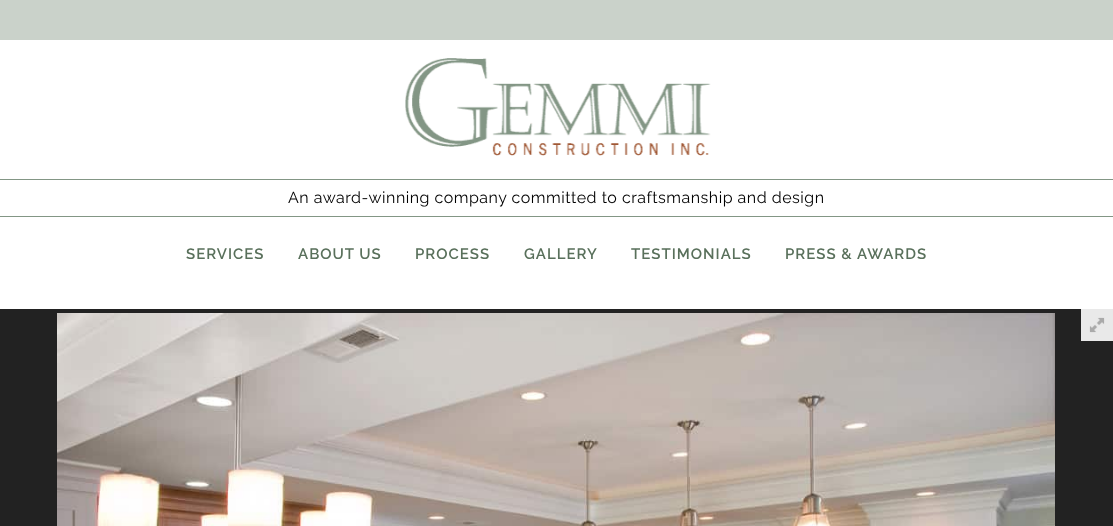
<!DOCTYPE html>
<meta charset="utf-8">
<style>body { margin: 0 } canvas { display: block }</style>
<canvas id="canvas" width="1113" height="526"></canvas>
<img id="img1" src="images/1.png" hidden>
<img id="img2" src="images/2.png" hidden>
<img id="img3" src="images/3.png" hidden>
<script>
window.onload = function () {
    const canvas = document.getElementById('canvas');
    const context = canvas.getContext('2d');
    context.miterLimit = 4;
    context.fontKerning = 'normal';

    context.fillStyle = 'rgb(255, 255, 255)';
    context.fillRect(0, 0, 1113, 526);
    context.fillStyle = 'rgb(202, 210, 202)';
    context.fillRect(0, 0, 1113, 40);
    context.drawImage(document.getElementById('img1'), 405, 58, 306, 98);
    context.fillStyle = 'rgb(131, 150, 133)';
    context.fillRect(0, 179, 1113, 1);
    context.fillRect(0, 216, 1113, 1);
    context.fillStyle = 'rgb(34, 34, 34)';
    context.fillRect(0, 309, 1113, 217);
    context.drawImage(document.getElementById('img2'), 57, 313, 998, 213);
    context.fillStyle = 'rgb(233, 233, 233)';
    context.fillRect(1081, 309, 32, 32);
    context.drawImage(document.getElementById('img3'), 1089, 317, 16, 16);
    context.letterSpacing = '0.5px';
    context.font = '100 16px Raleway';
    context.fillStyle = 'rgb(0, 0, 0)';
    context.fillText('An award-winning company committed to craftsmanship and design', 288, 203);
    context.letterSpacing = '1px';
    context.font = '600 15px Raleway';
    context.fillStyle = 'rgb(89, 112, 91)';
    context.fillText('SERVICES', 186, 259);
    context.fillText('ABOUT US', 298, 259);
    context.fillText('PROCESS', 415, 259);
    context.fillText('GALLERY', 524, 259);
    context.fillText('TESTIMONIALS', 631, 259);
    context.fillText('PRESS & AWARDS', 785, 259);
};
</script>
